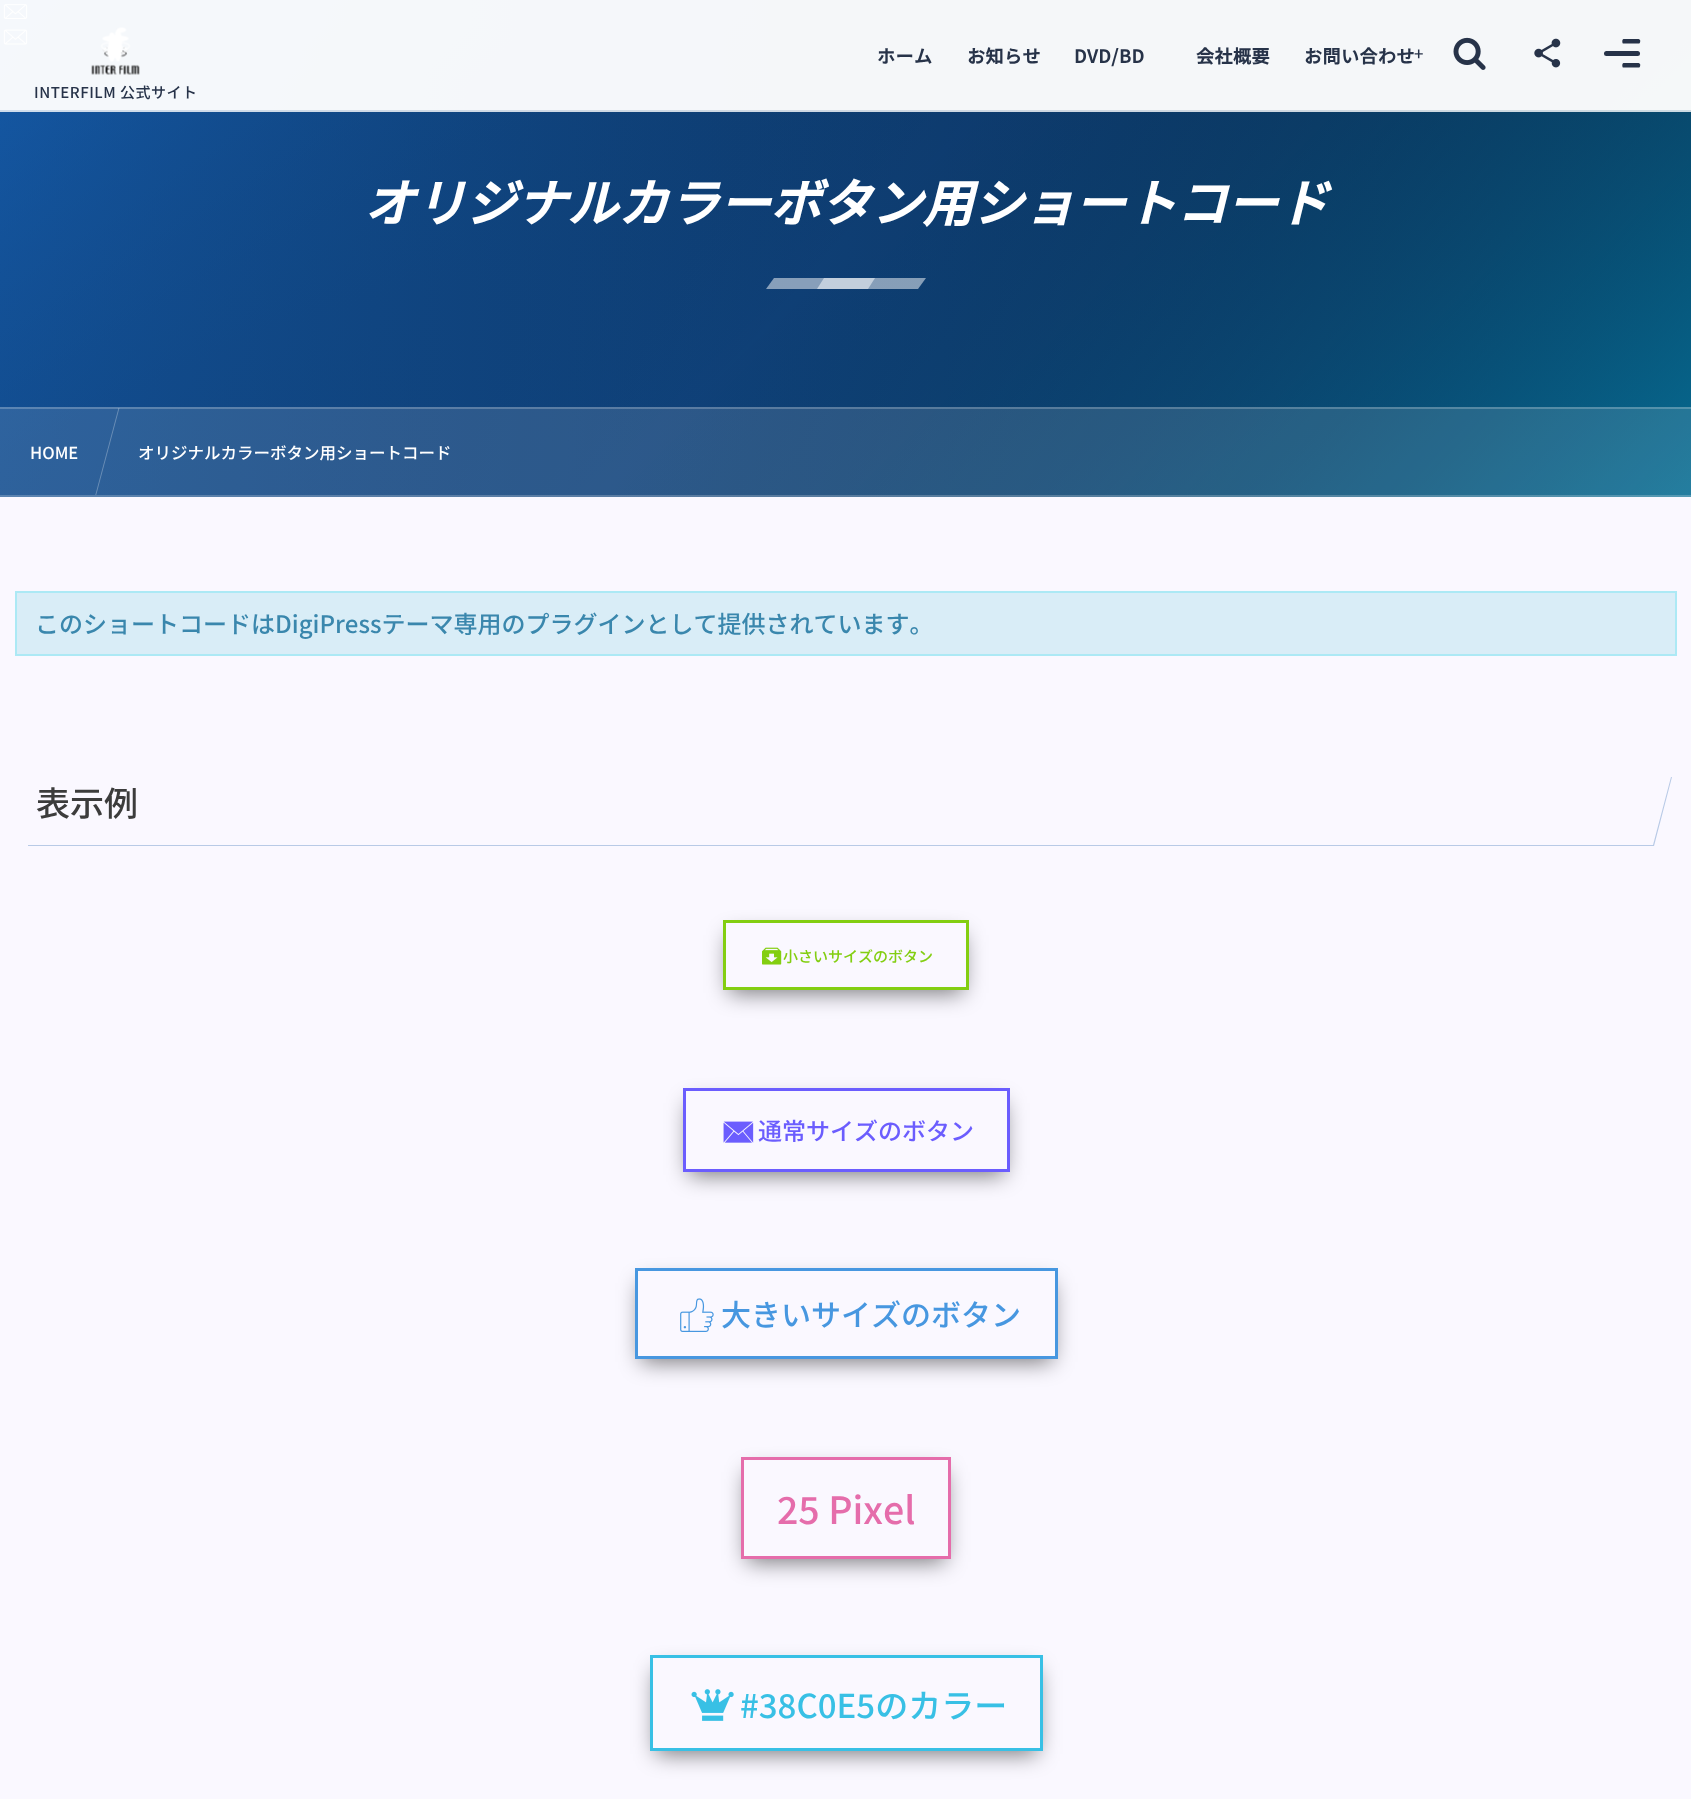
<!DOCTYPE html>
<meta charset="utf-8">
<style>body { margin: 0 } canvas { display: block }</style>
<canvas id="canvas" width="1691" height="1799"></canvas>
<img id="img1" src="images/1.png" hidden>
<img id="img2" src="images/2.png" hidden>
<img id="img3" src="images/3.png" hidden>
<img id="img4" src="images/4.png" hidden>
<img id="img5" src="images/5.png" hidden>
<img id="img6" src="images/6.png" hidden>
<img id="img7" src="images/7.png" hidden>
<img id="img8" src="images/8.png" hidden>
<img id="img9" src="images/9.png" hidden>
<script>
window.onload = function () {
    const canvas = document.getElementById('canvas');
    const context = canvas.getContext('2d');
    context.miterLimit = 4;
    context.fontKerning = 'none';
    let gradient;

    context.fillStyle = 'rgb(250, 248, 255)';
    context.fillRect(0, 0, 1691, 1799);
    gradient = context.createLinearGradient(0, 248, 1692, 248);
    gradient.addColorStop(0, 'rgb(21, 90, 168)');
    gradient.addColorStop(1, 'rgb(12, 54, 100)');
    context.fillStyle = gradient;
    context.fillRect(0, 0, 1691, 497);
    gradient = context.createLinearGradient(299, -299, 1393, 795);
    gradient.addColorStop(0, 'rgba(21, 90, 168, 0.48)');
    gradient.addColorStop(0.5, 'rgba(0, 0, 0, 0.14)');
    gradient.addColorStop(1, 'rgba(0, 168, 198, 0.48)');
    context.fillStyle = gradient;
    context.fillRect(0, 0, 1691, 497);
    context.drawImage(document.getElementById('img1'), 3, 4, 25, 15);
    context.drawImage(document.getElementById('img2'), 3, 29, 25, 16);
    context.fillStyle = 'rgba(255, 255, 255, 0.8)';
    context.fillRect(0, 110, 1691, 2);
    context.fillStyle = 'rgba(255, 255, 255, 0.96)';
    context.fillRect(0, 0, 1691, 110);
    context.drawImage(document.getElementById('img3'), 1453, 37, 33, 33);
    context.drawImage(document.getElementById('img4'), 1534, 38, 27, 30);
    context.fillStyle = 'rgb(39, 51, 73)';
    context.beginPath();
    context.moveTo(1623.5, 39);
    context.lineTo(1634, 39);
    context.bezierCurveTo(1637, 39, 1641.5, 38, 1640, 42.5);
    context.bezierCurveTo(1639.5, 44, 1638, 43.5, 1636.5, 43.5);
    context.lineTo(1623, 43.5);
    context.bezierCurveTo(1622, 43, 1622, 39, 1623.5, 39);
    context.closePath();
    context.fill();
    context.beginPath();
    context.roundRect(1604, 51, 36, 5, 2.5);
    context.fill();
    context.beginPath();
    context.moveTo(1623.5, 63);
    context.lineTo(1634, 63);
    context.bezierCurveTo(1637, 63, 1641.5, 62, 1640, 66.5);
    context.bezierCurveTo(1639.5, 68, 1638, 67.5, 1636.5, 67.5);
    context.lineTo(1623, 67.5);
    context.bezierCurveTo(1622, 67, 1622, 63, 1623.5, 63);
    context.closePath();
    context.fill();
    context.drawImage(document.getElementById('img5'), 91, 27, 49, 48);
    context.fillStyle = 'rgba(255, 255, 255, 0.5)';
    context.beginPath();
    context.moveTo(774, 278);
    context.lineTo(875, 278);
    context.lineTo(868, 289);
    context.lineTo(766, 289);
    context.closePath();
    context.fill();
    context.beginPath();
    context.moveTo(824, 278);
    context.lineTo(926, 278);
    context.lineTo(918, 289);
    context.lineTo(817, 289);
    context.closePath();
    context.fill();
    context.fillStyle = 'rgba(255, 255, 255, 0.12)';
    context.fillRect(0, 407, 1691, 90);
    context.fillStyle = 'rgba(255, 255, 255, 0.22)';
    context.fillRect(0, 407, 1691, 2);
    context.fillRect(0, 495, 1691, 2);
    context.save();
    context.beginPath();
    context.rect(0, 408, 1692, 87);
    context.clip();
    context.fillStyle = 'rgba(255, 255, 255, 0.28)';
    context.beginPath();
    context.moveTo(119, 406);
    context.lineTo(120, 406);
    context.lineTo(96, 496);
    context.lineTo(95, 496);
    context.closePath();
    context.fill();
    context.restore();
    context.fillStyle = 'rgb(217, 237, 247)';
    context.beginPath();
    context.rect(16, 592, 1660, 63);
    context.fill();
    context.strokeStyle = 'rgb(172, 233, 245)';
    context.lineWidth = 2;
    context.stroke();
    context.save();
    context.beginPath();
    context.moveTo(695, 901);
    context.lineTo(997, 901);
    context.lineTo(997, 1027);
    context.lineTo(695, 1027);
    context.closePath();
    context.moveTo(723, 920);
    context.lineTo(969, 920);
    context.lineTo(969, 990);
    context.lineTo(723, 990);
    context.closePath();
    context.clip('evenodd');
    context.fillStyle = 'rgba(0, 0, 0, 0.52)';
    context.filter = 'blur(11px)';
    context.beginPath();
    context.rect(729, 935, 234, 58);
    context.fill();
    context.filter = 'none';
    context.restore();
    context.strokeStyle = 'rgb(131, 206, 17)';
    context.lineWidth = 3;
    context.strokeRect(724.5, 921.5, 243, 67);
    context.drawImage(document.getElementById('img6'), 762, 947, 20, 18);
    context.save();
    context.beginPath();
    context.moveTo(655, 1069);
    context.lineTo(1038, 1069);
    context.lineTo(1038, 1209);
    context.lineTo(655, 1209);
    context.closePath();
    context.moveTo(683, 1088);
    context.lineTo(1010, 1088);
    context.lineTo(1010, 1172);
    context.lineTo(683, 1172);
    context.closePath();
    context.clip('evenodd');
    context.fillStyle = 'rgba(0, 0, 0, 0.52)';
    context.filter = 'blur(11px)';
    context.beginPath();
    context.rect(689, 1103, 315, 72);
    context.fill();
    context.filter = 'none';
    context.restore();
    context.strokeStyle = 'rgb(107, 93, 254)';
    context.strokeRect(684.5, 1089.5, 324, 81);
    context.drawImage(document.getElementById('img7'), 723, 1121, 31, 22);
    context.save();
    context.beginPath();
    context.moveTo(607, 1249);
    context.lineTo(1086, 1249);
    context.lineTo(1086, 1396);
    context.lineTo(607, 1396);
    context.closePath();
    context.moveTo(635, 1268);
    context.lineTo(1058, 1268);
    context.lineTo(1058, 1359);
    context.lineTo(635, 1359);
    context.closePath();
    context.clip('evenodd');
    context.fillStyle = 'rgba(0, 0, 0, 0.52)';
    context.filter = 'blur(11px)';
    context.beginPath();
    context.rect(641, 1283, 411, 79);
    context.fill();
    context.filter = 'none';
    context.restore();
    context.strokeStyle = 'rgb(71, 151, 224)';
    context.strokeRect(636.5, 1269.5, 420, 88);
    context.drawImage(document.getElementById('img8'), 680, 1298, 34, 34);
    context.save();
    context.beginPath();
    context.moveTo(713, 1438);
    context.lineTo(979, 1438);
    context.lineTo(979, 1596);
    context.lineTo(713, 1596);
    context.closePath();
    context.moveTo(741, 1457);
    context.lineTo(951, 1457);
    context.lineTo(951, 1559);
    context.lineTo(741, 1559);
    context.closePath();
    context.clip('evenodd');
    context.fillStyle = 'rgba(0, 0, 0, 0.52)';
    context.filter = 'blur(11px)';
    context.beginPath();
    context.rect(747, 1472, 198, 90);
    context.fill();
    context.filter = 'none';
    context.restore();
    context.strokeStyle = 'rgb(229, 109, 171)';
    context.strokeRect(742.5, 1458.5, 207, 99);
    context.save();
    context.beginPath();
    context.moveTo(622, 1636);
    context.lineTo(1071, 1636);
    context.lineTo(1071, 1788);
    context.lineTo(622, 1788);
    context.closePath();
    context.moveTo(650, 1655);
    context.lineTo(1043, 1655);
    context.lineTo(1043, 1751);
    context.lineTo(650, 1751);
    context.closePath();
    context.clip('evenodd');
    context.fillStyle = 'rgba(0, 0, 0, 0.52)';
    context.filter = 'blur(11px)';
    context.beginPath();
    context.rect(656, 1670, 381, 84);
    context.fill();
    context.filter = 'none';
    context.restore();
    context.strokeStyle = 'rgb(56, 192, 229)';
    context.strokeRect(651.5, 1656.5, 390, 93);
    context.drawImage(document.getElementById('img9'), 691, 1689, 43, 32);
    context.letterSpacing = '0.5px';
    context.font = 'bold 18px Noto Sans JP';
    context.fillStyle = 'rgb(39, 51, 73)';
    context.fillText('ホーム', 877, 63);
    context.fillText('お知らせ', 967, 63);
    context.fillText('会社概要', 1196, 63);
    context.fillText('お問い合わせ', 1304, 63);
    context.fillText('DVD/BD', 1074, 63);
    context.font = '100 16.5px Noto Sans JP';
    context.fillText('+', 1414, 60);
    context.font = '100 15px Noto Sans JP';
    context.fillText('INTERFILM 公式サイト', 34, 98);
    context.letterSpacing = '0px';
    context.font = 'italic bold 50.75px Noto Sans JP';
    context.fillStyle = 'rgb(255, 255, 255)';
    context.fillText('オリジナルカラーボタン用ショートコード', 364, 222);
    context.font = '100 16.5px Noto Sans JP';
    context.fillText('HOME', 30, 459);
    context.fillText('オリジナルカラーボタン用ショートコード', 138, 459);
    context.font = '100 24px Noto Sans JP';
    context.fillStyle = 'rgb(58, 135, 173)';
    context.fillText('このショートコードはDigiPressテーマ専用のプラグインとして提供されています。', 35, 633);
    context.font = '100 34px Noto Sans JP';
    context.fillStyle = 'rgb(60, 60, 60)';
    context.fillText('表示例', 36, 816);
    context.fillStyle = 'rgba(113, 153, 203, 0.48)';
    context.beginPath();
    context.moveTo(28, 845);
    context.lineTo(28, 846);
    context.lineTo(1654, 846);
    context.lineTo(1672, 777);
    context.lineTo(1671, 777);
    context.lineTo(1653, 845);
    context.closePath();
    context.fill();
    context.font = '100 15px Noto Sans JP';
    context.fillStyle = 'rgb(131, 206, 17)';
    context.fillText('小さいサイズのボタン', 783, 962);
    context.font = '100 24px Noto Sans JP';
    context.fillStyle = 'rgb(107, 93, 254)';
    context.fillText('通常サイズのボタン', 758, 1140);
    context.font = '100 30px Noto Sans JP';
    context.fillStyle = 'rgb(71, 151, 224)';
    context.fillText('大きいサイズのボタン', 721, 1326);
    context.font = '100 37.5px Noto Sans JP';
    context.fillStyle = 'rgb(229, 109, 171)';
    context.fillText('25 Pixel', 777, 1524);
    context.font = '100 33px Noto Sans JP';
    context.fillStyle = 'rgb(56, 192, 229)';
    context.fillText('#38C0E5のカラー', 740, 1718);
};
</script>
